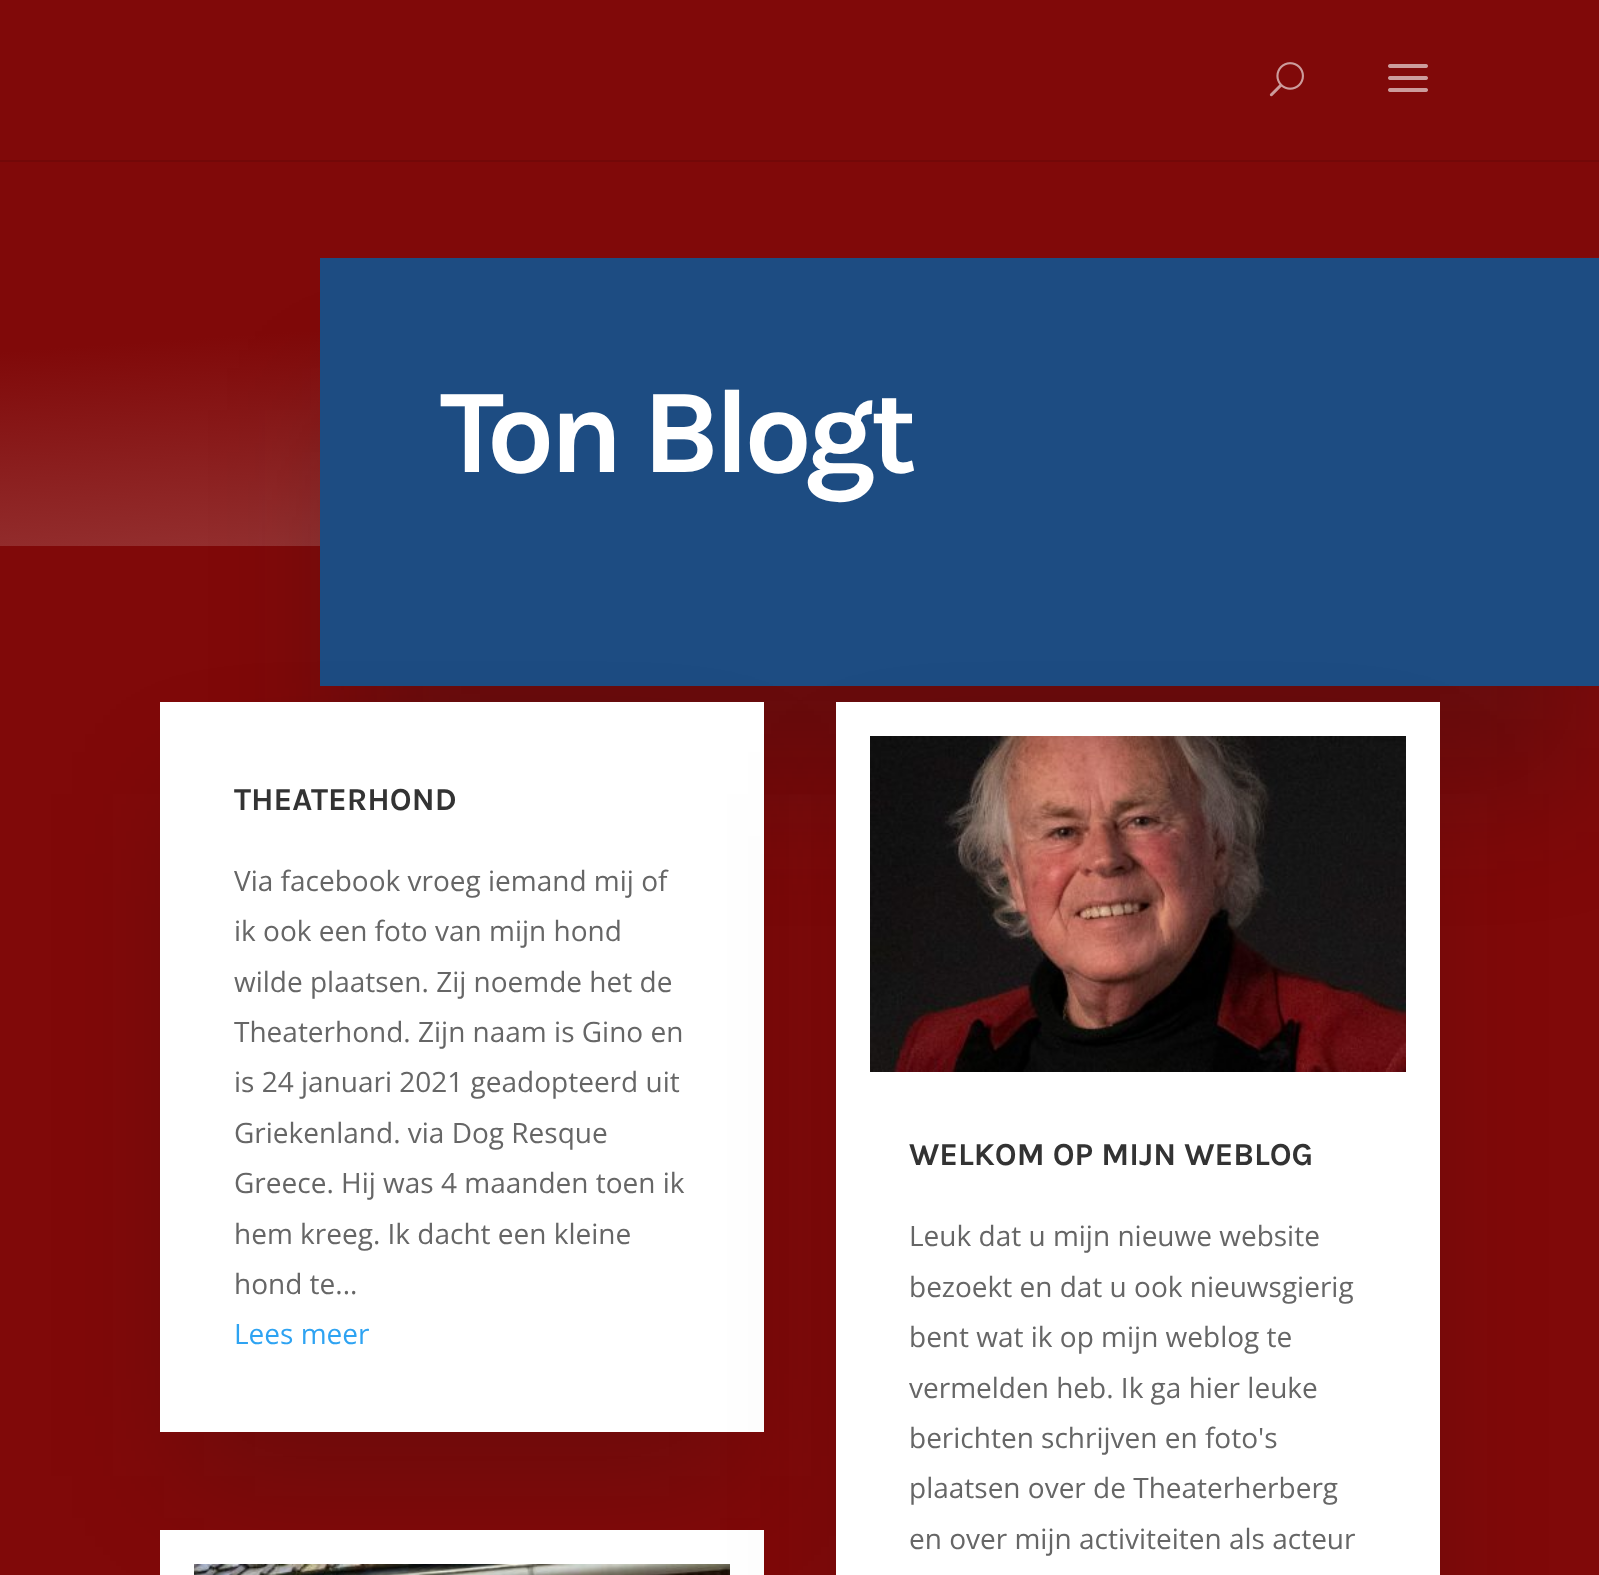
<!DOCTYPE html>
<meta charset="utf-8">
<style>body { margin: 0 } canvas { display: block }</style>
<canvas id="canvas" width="1599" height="1575"></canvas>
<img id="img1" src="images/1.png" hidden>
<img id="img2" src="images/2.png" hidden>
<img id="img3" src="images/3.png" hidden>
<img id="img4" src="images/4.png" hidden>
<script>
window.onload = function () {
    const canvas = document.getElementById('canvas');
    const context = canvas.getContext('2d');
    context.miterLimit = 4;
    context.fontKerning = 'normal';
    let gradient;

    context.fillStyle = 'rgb(128, 9, 9)';
    context.fillRect(0, 0, 1599, 1575);
    context.fillStyle = 'rgb(115, 8, 8)';
    context.fillRect(0, 160, 1599, 2);
    context.drawImage(document.getElementById('img1'), 1269, 62, 35, 35);
    context.drawImage(document.getElementById('img2'), 1388, 64, 40, 28);
    gradient = context.createLinearGradient(783, 103, 817, 601);
    gradient.addColorStop(0.39, 'rgb(128, 9, 9)');
    gradient.addColorStop(1, 'rgb(156, 63, 63)');
    context.fillStyle = gradient;
    context.fillRect(0, 257, 1599, 289);
    context.fillStyle = 'rgba(20, 22, 23, 0.24)';
    context.filter = 'blur(64px)';
    context.beginPath();
    context.rect(344, 410, 1232, 380);
    context.fill();
    context.filter = 'none';
    context.fillStyle = 'rgb(29, 76, 130)';
    context.fillRect(320, 258, 1279, 428);
    context.fillStyle = 'rgba(20, 22, 23, 0.19)';
    context.filter = 'blur(64px)';
    context.beginPath();
    context.rect(184, 794, 556, 682);
    context.fill();
    context.filter = 'none';
    context.fillStyle = 'rgb(255, 255, 255)';
    context.fillRect(160, 702, 604, 730);
    context.fillRect(160, 1530, 604, 45);
    context.fillStyle = 'rgba(20, 22, 23, 0.19)';
    context.filter = 'blur(64px)';
    context.beginPath();
    context.rect(860, 794, 556, 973);
    context.fill();
    context.filter = 'none';
    context.drawImage(document.getElementById('img3'), 194, 1564, 536, 11);
    context.fillStyle = 'rgb(255, 255, 255)';
    context.fillRect(836, 702, 604, 873);
    context.drawImage(document.getElementById('img4'), 870, 736, 536, 336);
    context.letterSpacing = '-6px';
    context.font = 'bold 120px Karla';
    context.fillText('Ton Blogt', 440, 472);
    context.letterSpacing = '0px';
    context.font = 'bold 32px Karla';
    context.fillStyle = 'rgb(51, 51, 51)';
    context.fillText('THEATERHOND', 234, 810);
    context.font = '28px Open Sans';
    context.fillStyle = 'rgb(102, 102, 102)';
    context.fillText('Via facebook vroeg iemand mij of', 234, 891);
    context.fillText('ik ook een foto van mijn hond', 234, 941);
    context.fillText('wilde plaatsen. Zij noemde het de', 234, 992);
    context.fillText('Theaterhond. Zijn naam is Gino en', 234, 1042);
    context.fillText('is 24 januari 2021 geadopteerd uit', 234, 1092);
    context.fillText('Griekenland. via Dog Resque', 234, 1143);
    context.fillText('Greece. Hij was 4 maanden toen ik', 234, 1193);
    context.fillText('hem kreeg. Ik dacht een kleine', 234, 1244);
    context.fillText('hond te...', 234, 1294);
    context.fillStyle = 'rgb(46, 163, 242)';
    context.fillText('Lees meer', 234, 1344);
    context.font = 'bold 32px Karla';
    context.fillStyle = 'rgb(51, 51, 51)';
    context.fillText('WELKOM OP MIJN WEBLOG', 909, 1165);
    context.font = '28px Open Sans';
    context.fillStyle = 'rgb(102, 102, 102)';
    context.fillText('Leuk dat u mijn nieuwe website', 909, 1246);
    context.fillText('bezoekt en dat u ook nieuwsgierig', 909, 1297);
    context.fillText('bent wat ik op mijn weblog te', 909, 1347);
    context.fillText('vermelden heb. Ik ga hier leuke', 909, 1398);
    context.fillText('berichten schrijven en foto\'s', 909, 1448);
    context.fillText('plaatsen over de Theaterherberg', 909, 1498);
    context.fillText('en over mijn activiteiten als acteur', 909, 1549);
};
</script>
